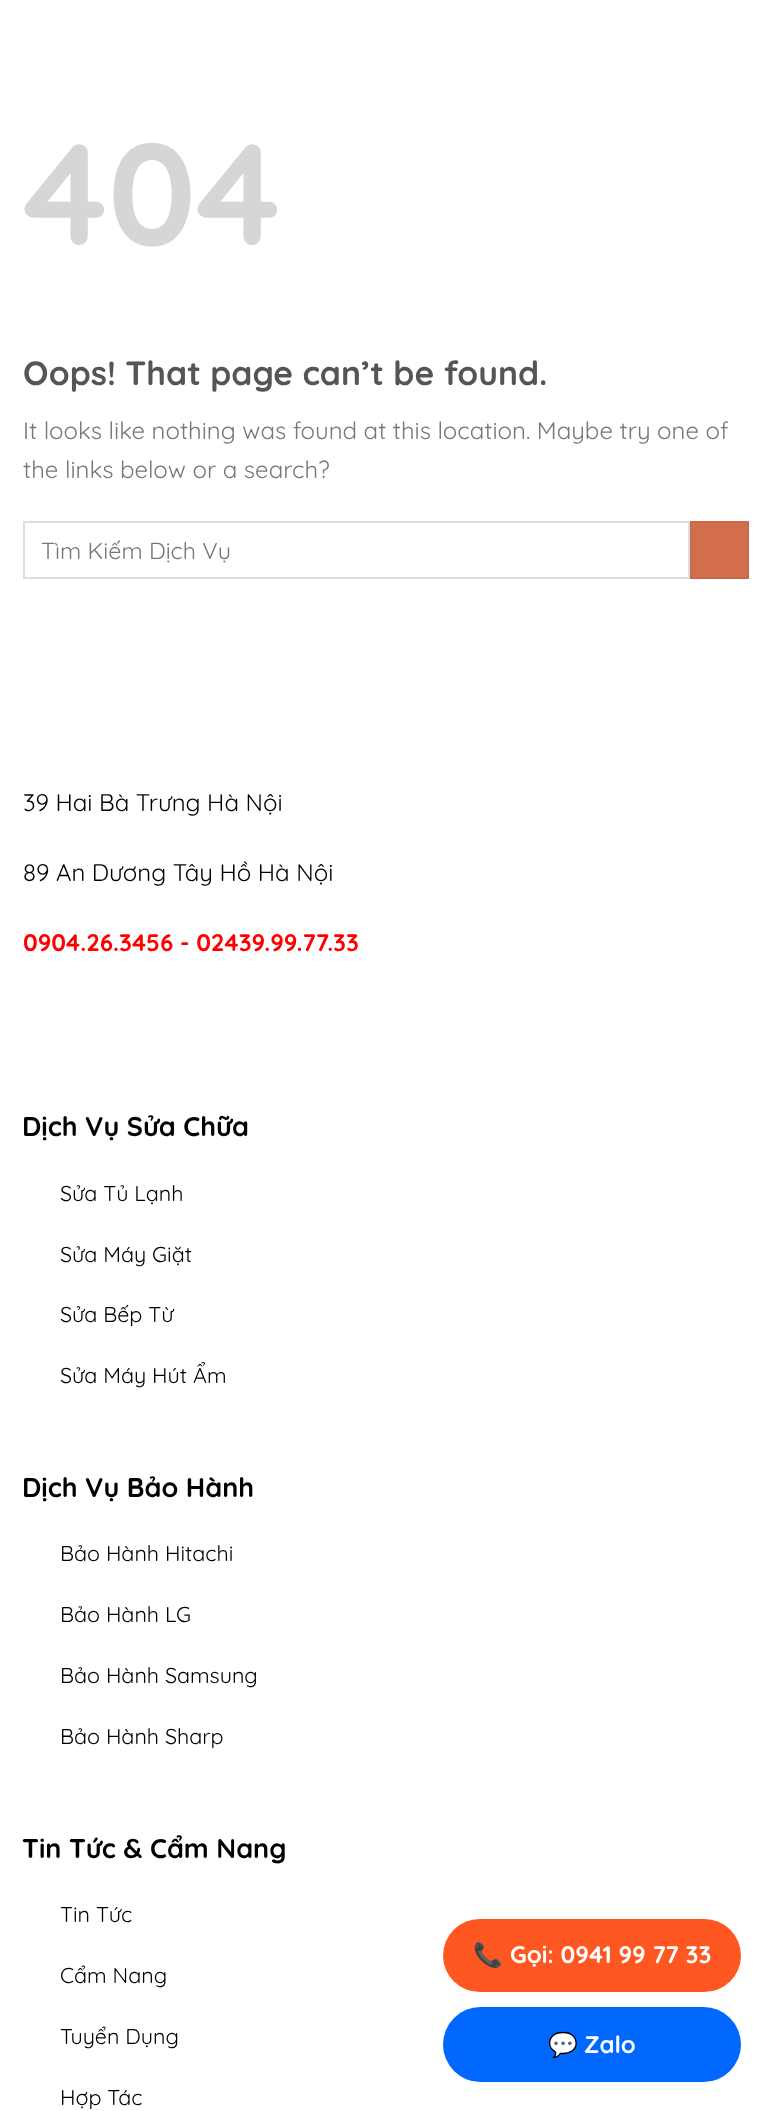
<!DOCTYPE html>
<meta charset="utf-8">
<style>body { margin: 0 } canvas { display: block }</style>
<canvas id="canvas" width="770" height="2111"></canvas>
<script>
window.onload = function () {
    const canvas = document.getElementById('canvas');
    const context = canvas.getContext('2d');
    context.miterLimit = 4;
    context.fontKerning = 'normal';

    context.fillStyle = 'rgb(255, 255, 255)';
    context.fillRect(0, 0, 770, 2111);
    context.strokeStyle = 'rgb(221, 221, 221)';
    context.lineWidth = 2;
    context.strokeRect(24, 522, 665, 56);
    context.fillStyle = 'rgb(210, 110, 75)';
    context.beginPath();
    context.rect(691, 522, 57, 56);
    context.fill();
    context.strokeStyle = 'rgb(200, 105, 71)';
    context.stroke();
    context.fillStyle = 'rgb(255, 87, 34)';
    context.beginPath();
    context.roundRect(443, 1919, 298, 73, 36.5);
    context.fill();
    context.fillStyle = 'rgb(0, 104, 255)';
    context.beginPath();
    context.roundRect(443, 2007, 298, 75, 37.5);
    context.fill();
    context.font = 'bold 144px Quicksand';
    context.fillStyle = 'rgb(214, 214, 214)';
    context.fillText('404', 23, 245);
    context.font = 'bold 33.6px Quicksand';
    context.fillStyle = 'rgb(85, 85, 85)';
    context.fillText('Oops! That page can’t be found.', 23, 385);
    context.font = '24px Quicksand';
    context.fillStyle = 'rgb(119, 119, 119)';
    context.fillText('It looks like nothing was found at this location. Maybe try one of', 23, 439);
    context.fillText('the links below or a search?', 23, 478);
    context.font = '23.25px Quicksand';
    context.fillText('Tìm Kiếm Dịch Vụ', 41, 559);
    context.font = '24px Quicksand';
    context.fillStyle = 'rgb(0, 0, 0)';
    context.fillText('39 Hai Bà Trưng Hà Nội', 23, 811);
    context.fillText('89 An Dương Tây Hồ Hà Nội', 23, 881);
    context.font = 'bold 24px Quicksand';
    context.fillStyle = 'rgb(255, 0, 0)';
    context.fillText('0904.26.3456 - 02439.99.77.33', 23, 951);
    context.font = 'bold 27px Quicksand';
    context.fillStyle = 'rgb(0, 0, 0)';
    context.fillText('Dịch Vụ Sửa Chữa', 22, 1136);
    context.font = '21.5px Quicksand';
    context.fillText('Sửa Tủ Lạnh', 60, 1201);
    context.fillText('Sửa Máy Giặt', 60, 1262);
    context.fillText('Sửa Bếp Từ', 60, 1322);
    context.fillText('Sửa Máy Hút Ẩm', 60, 1383);
    context.font = 'bold 27px Quicksand';
    context.fillText('Dịch Vụ Bảo Hành', 22, 1497);
    context.font = '21.5px Quicksand';
    context.fillText('Bảo Hành Hitachi', 60, 1561);
    context.fillText('Bảo Hành LG', 60, 1622);
    context.fillText('Bảo Hành Samsung', 60, 1683);
    context.fillText('Bảo Hành Sharp', 60, 1744);
    context.font = 'bold 27px Quicksand';
    context.fillText('Tin Tức & Cẩm Nang', 22, 1858);
    context.font = '21.5px Quicksand';
    context.fillText('Tin Tức', 60, 1922);
    context.fillText('Cẩm Nang', 60, 1983);
    context.fillText('Tuyển Dụng', 60, 2044);
    context.fillText('Hợp Tác', 60, 2105);
    context.font = 'bold 24px Noto Color Emoji';
    context.fillStyle = 'rgb(255, 255, 255)';
    context.fillText('📞', 473, 1963);
    context.font = 'bold 24px Quicksand';
    context.fillText('Gọi: 0941 99 77 33', 510, 1963);
    context.font = 'bold 24px Noto Color Emoji';
    context.fillText('💬', 548, 2053);
    context.font = 'bold 24px Quicksand';
    context.fillText('Zalo', 584, 2053);
};
</script>
